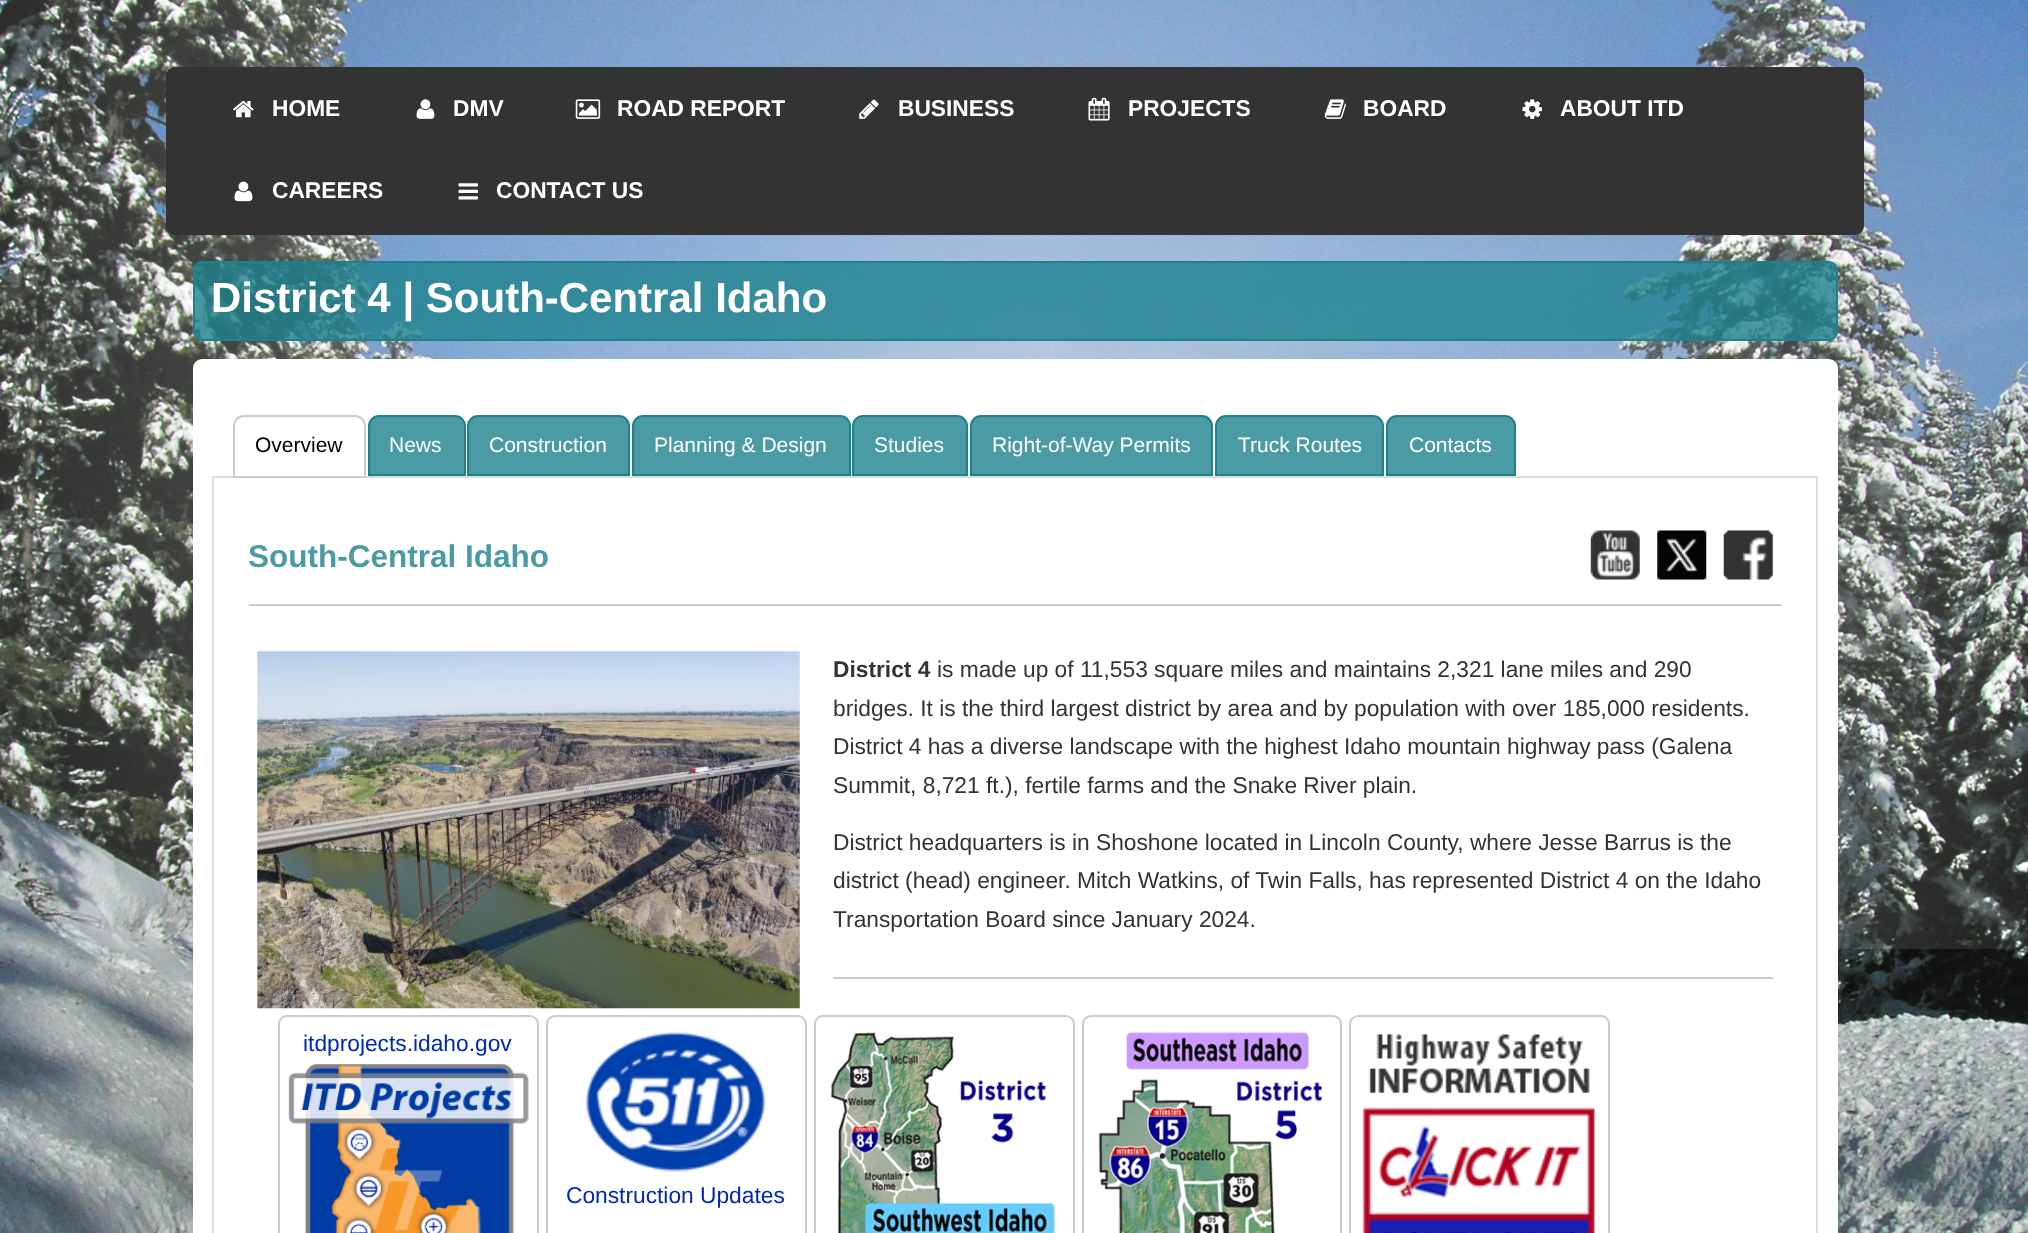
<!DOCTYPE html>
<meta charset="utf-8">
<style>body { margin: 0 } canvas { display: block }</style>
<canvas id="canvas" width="2028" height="1233"></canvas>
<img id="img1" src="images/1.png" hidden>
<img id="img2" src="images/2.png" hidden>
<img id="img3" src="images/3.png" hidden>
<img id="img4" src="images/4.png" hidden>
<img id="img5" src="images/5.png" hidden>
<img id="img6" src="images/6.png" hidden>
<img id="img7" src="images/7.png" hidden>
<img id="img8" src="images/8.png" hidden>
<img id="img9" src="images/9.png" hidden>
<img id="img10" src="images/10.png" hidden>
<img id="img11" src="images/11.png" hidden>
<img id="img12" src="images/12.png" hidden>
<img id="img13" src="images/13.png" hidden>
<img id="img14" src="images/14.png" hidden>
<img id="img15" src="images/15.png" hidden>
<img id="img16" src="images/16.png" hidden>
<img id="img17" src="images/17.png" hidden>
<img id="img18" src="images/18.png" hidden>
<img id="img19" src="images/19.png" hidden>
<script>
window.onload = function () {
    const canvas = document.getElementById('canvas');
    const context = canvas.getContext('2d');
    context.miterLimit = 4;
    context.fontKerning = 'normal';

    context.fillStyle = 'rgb(255, 255, 255)';
    context.fillRect(0, 0, 2028, 1233);
    context.drawImage(document.getElementById('img1'), 0, 0, 2028, 1233);
    context.fillStyle = 'rgb(51, 51, 51)';
    context.beginPath();
    context.roundRect(167, 68, 1696, 166, 8);
    context.fill();
    context.strokeStyle = 'rgb(51, 51, 51)';
    context.lineWidth = 2;
    context.stroke();
    context.drawImage(document.getElementById('img2'), 233, 101, 21, 17);
    context.drawImage(document.getElementById('img3'), 416, 99, 19, 20);
    context.drawImage(document.getElementById('img4'), 575, 99, 26, 20);
    context.drawImage(document.getElementById('img5'), 859, 99, 20, 20);
    context.drawImage(document.getElementById('img6'), 1088, 97, 22, 24);
    context.drawImage(document.getElementById('img7'), 1324, 99, 22, 20);
    context.drawImage(document.getElementById('img8'), 1522, 99, 20, 20);
    context.drawImage(document.getElementById('img9'), 234, 181, 19, 21);
    context.drawImage(document.getElementById('img10'), 458, 183, 20, 17);
    context.fillStyle = 'rgba(30, 130, 142, 0.8)';
    context.beginPath();
    context.roundRect(194, 262, 1643, 78, 8);
    context.fill();
    context.strokeStyle = 'rgb(30, 130, 142)';
    context.stroke();
    context.fillStyle = 'rgb(255, 255, 255)';
    context.beginPath();
    context.roundRect(194, 360, 1643, 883, 8);
    context.fill();
    context.strokeStyle = 'rgb(255, 255, 255)';
    context.stroke();
    context.strokeStyle = 'rgb(221, 221, 221)';
    context.strokeRect(213, 477, 1604, 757);
    context.beginPath();
    context.roundRect(234, 416, 131, 61, [10, 10, 0, 0]);
    context.fill();
    context.strokeStyle = 'rgb(204, 204, 204)';
    context.stroke();
    context.fillStyle = 'rgb(75, 155, 165)';
    context.beginPath();
    context.roundRect(369, 416, 96, 59, [10, 10, 0, 0]);
    context.fill();
    context.strokeStyle = 'rgb(30, 130, 142)';
    context.stroke();
    context.beginPath();
    context.roundRect(468, 416, 161, 59, [10, 10, 0, 0]);
    context.fill();
    context.stroke();
    context.beginPath();
    context.roundRect(633, 416, 217, 59, [10, 10, 0, 0]);
    context.fill();
    context.stroke();
    context.beginPath();
    context.roundRect(853, 416, 114, 59, [10, 10, 0, 0]);
    context.fill();
    context.stroke();
    context.beginPath();
    context.roundRect(971, 416, 241, 59, [10, 10, 0, 0]);
    context.fill();
    context.stroke();
    context.beginPath();
    context.roundRect(1216, 416, 167, 59, [10, 10, 0, 0]);
    context.fill();
    context.stroke();
    context.beginPath();
    context.roundRect(1387, 416, 128, 59, [10, 10, 0, 0]);
    context.fill();
    context.stroke();
    context.drawImage(document.getElementById('img11'), 1590, 530, 50, 50);
    context.drawImage(document.getElementById('img12'), 1657, 530, 50, 50);
    context.drawImage(document.getElementById('img13'), 1723, 530, 50, 50);
    context.fillStyle = 'rgb(204, 204, 204)';
    context.fillRect(249, 604, 1533, 2);
    context.drawImage(document.getElementById('img14'), 257, 651, 543, 358);
    context.fillRect(833, 977, 940, 2);
    context.beginPath();
    context.roundRect(279, 1016, 259, 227, 8);
    context.strokeStyle = 'rgb(204, 204, 204)';
    context.stroke();
    context.drawImage(document.getElementById('img15'), 288, 1064, 241, 169);
    context.beginPath();
    context.roundRect(815, 1016, 259, 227, 8);
    context.stroke();
    context.drawImage(document.getElementById('img16'), 830, 1032, 225, 201);
    context.beginPath();
    context.roundRect(1083, 1016, 258, 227, 8);
    context.stroke();
    context.drawImage(document.getElementById('img17'), 1098, 1032, 224, 201);
    context.beginPath();
    context.roundRect(1350, 1016, 259, 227, 8);
    context.stroke();
    context.drawImage(document.getElementById('img18'), 1362, 1034, 233, 199);
    context.beginPath();
    context.roundRect(547, 1016, 259, 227, 8);
    context.stroke();
    context.drawImage(document.getElementById('img19'), 585, 1032, 181, 140);
    context.font = 'bold 22.75px Liberation Sans';
    context.fillStyle = 'rgb(255, 255, 255)';
    context.fillText('HOME', 272, 116);
    context.fillText('DMV', 453, 116);
    context.fillText('ROAD REPORT', 617, 116);
    context.fillText('BUSINESS', 898, 116);
    context.fillText('PROJECTS', 1128, 116);
    context.fillText('BOARD', 1363, 116);
    context.fillText('ABOUT ITD', 1560, 116);
    context.fillText('CAREERS', 272, 198);
    context.fillText('CONTACT US', 496, 198);
    context.font = 'bold 42px Liberation Sans';
    context.fillText('District 4 | South-Central Idaho', 211, 312);
    context.font = '21px Liberation Sans';
    context.fillStyle = 'rgb(0, 0, 0)';
    context.fillText('Overview', 255, 452);
    context.fillStyle = 'rgb(255, 255, 255)';
    context.fillText('News', 389, 452);
    context.fillText('Construction', 489, 452);
    context.fillText('Planning & Design', 654, 452);
    context.fillText('Studies', 874, 452);
    context.fillText('Right-of-Way Permits', 992, 452);
    context.fillText('Truck Routes', 1238, 452);
    context.fillText('Contacts', 1409, 452);
    context.font = 'bold 31.5px Liberation Sans';
    context.fillStyle = 'rgb(75, 155, 165)';
    context.fillText('South-Central Idaho', 248, 567);
    context.font = 'bold 22.75px Liberation Sans';
    context.fillStyle = 'rgb(51, 51, 51)';
    context.fillText('District 4', 833, 677);
    context.font = '22.75px Liberation Sans';
    context.fillText('is made up of 11,553 square miles and maintains 2,321 lane miles and 290', 937, 677);
    context.fillText('bridges. It is the third largest district by area and by population with over 185,000 residents.', 833, 716);
    context.fillText('District 4 has a diverse landscape with the highest Idaho mountain highway pass (Galena', 833, 754);
    context.fillText('Summit, 8,721 ft.), fertile farms and the Snake River plain.', 833, 793);
    context.fillText('District headquarters is in Shoshone located in Lincoln County, where Jesse Barrus is the', 833, 850);
    context.fillText('district (head) engineer. Mitch Watkins, of Twin Falls, has represented District 4 on the Idaho', 833, 888);
    context.fillText('Transportation Board since January 2024.', 833, 927);
    context.fillStyle = 'rgb(0, 39, 193)';
    context.fillText('itdprojects.idaho.gov', 303, 1051);
    context.fillText('Construction Updates', 566, 1203);
};
</script>
